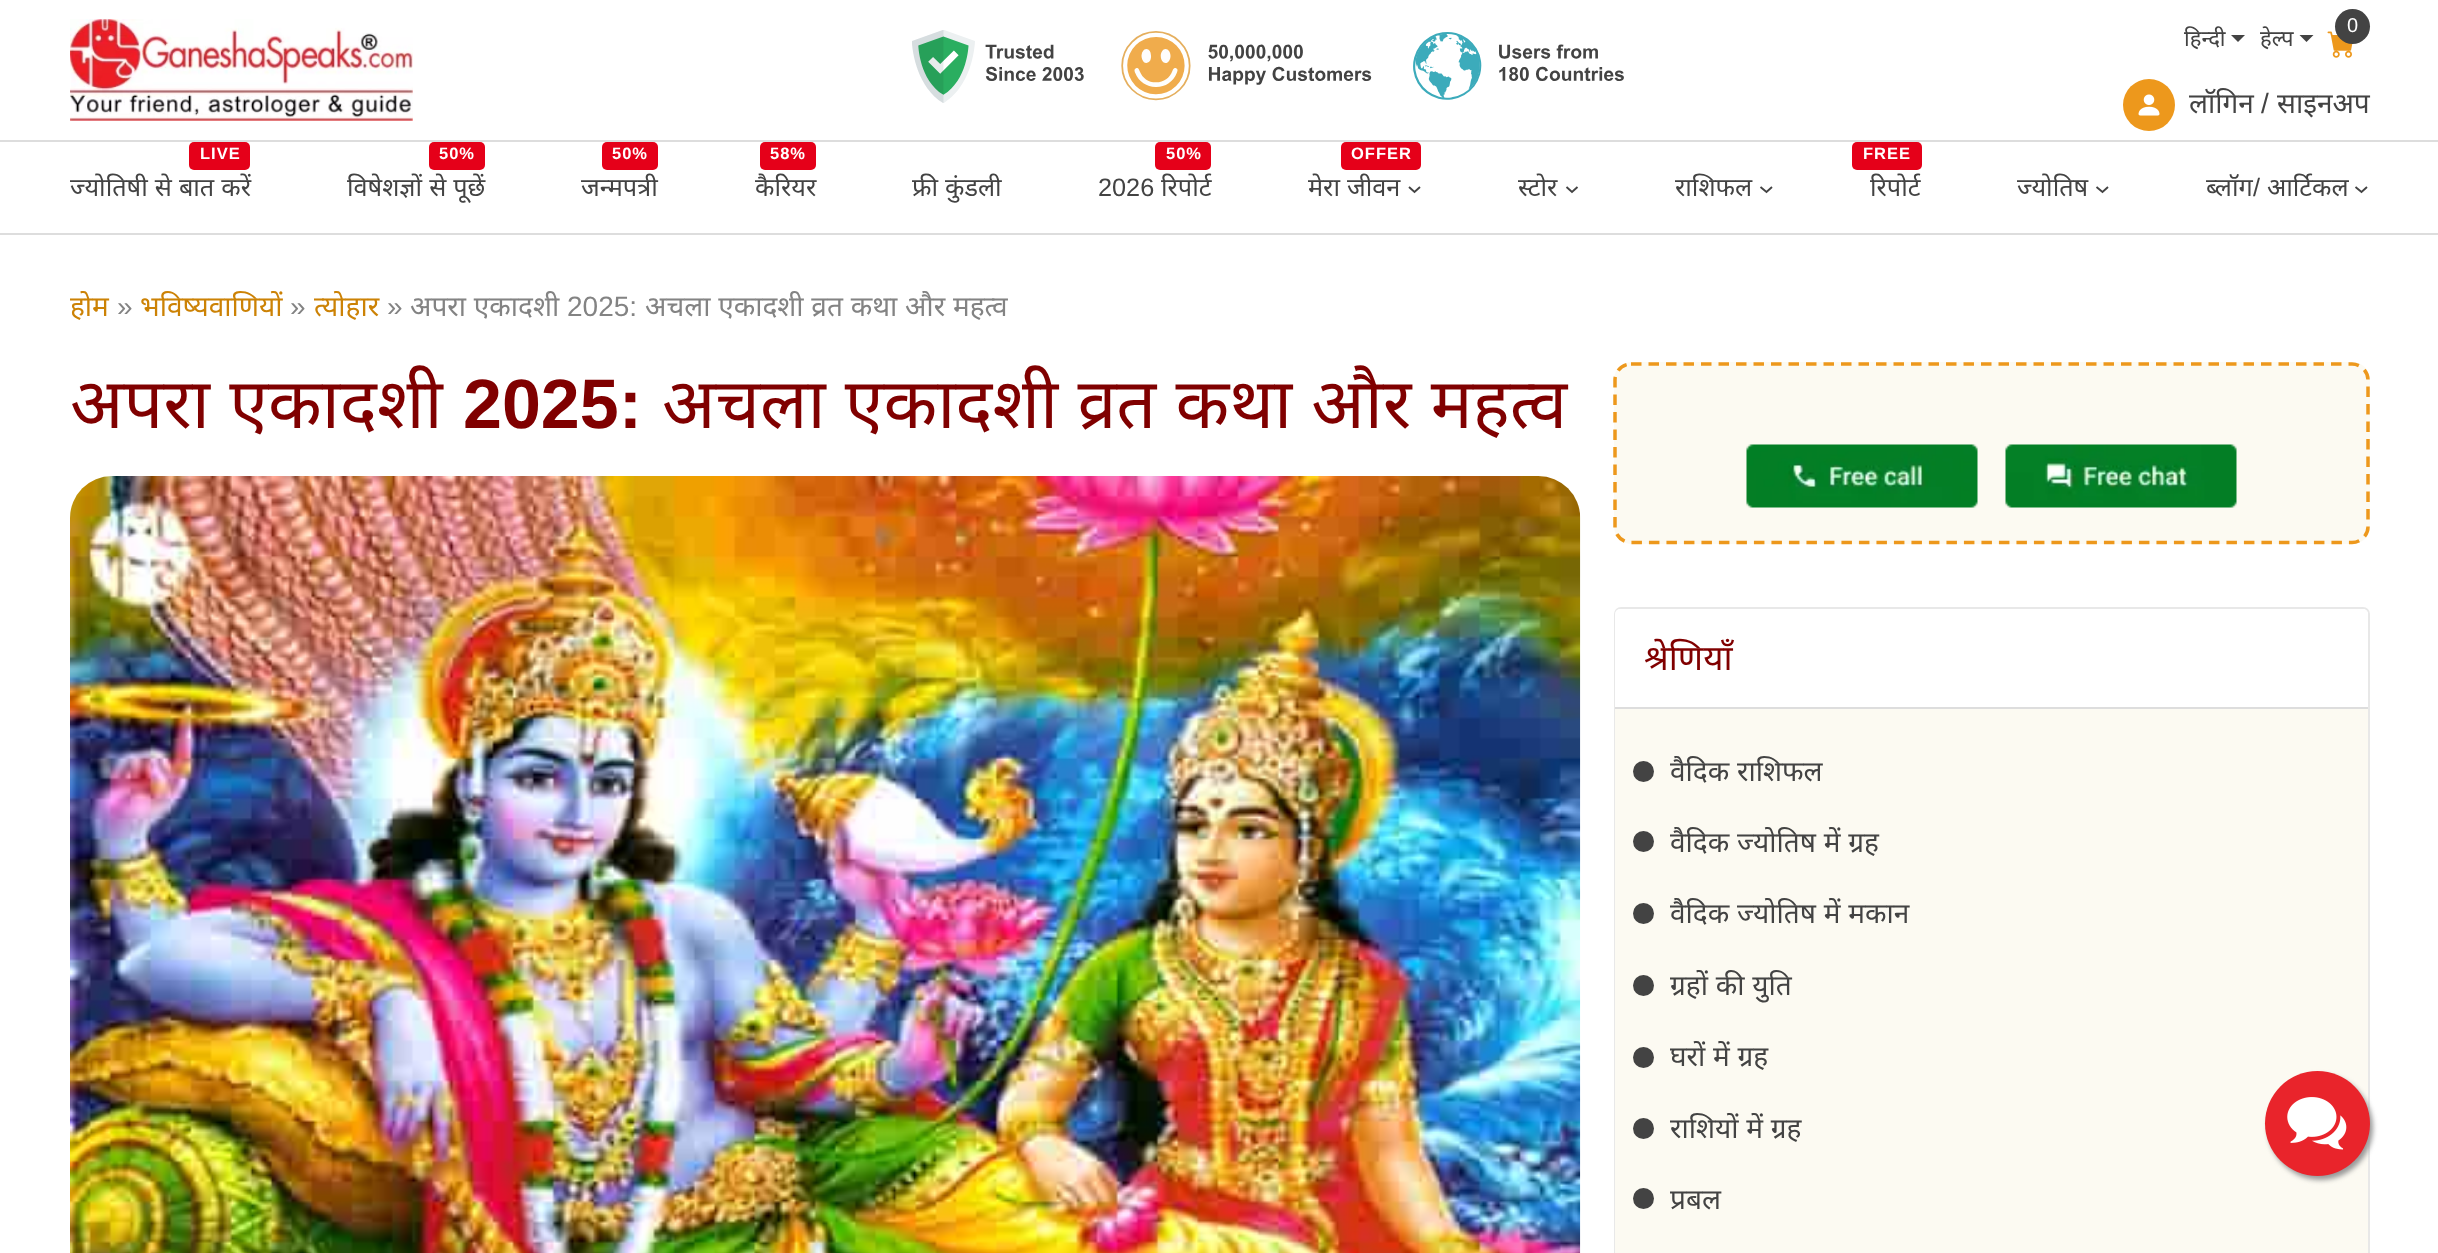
<!DOCTYPE html>
<meta charset="utf-8">
<style>body { margin: 0 } canvas { display: block }</style>
<canvas id="canvas" width="2438" height="1253"></canvas>
<img id="img1" src="images/1.png" hidden>
<img id="img2" src="images/2.png" hidden>
<img id="img3" src="images/3.png" hidden>
<img id="img4" src="images/4.png" hidden>
<img id="img5" src="images/5.png" hidden>
<img id="img6" src="images/6.png" hidden>
<img id="img7" src="images/7.png" hidden>
<img id="img8" src="images/8.png" hidden>
<script>
window.onload = function () {
    const canvas = document.getElementById('canvas');
    const context = canvas.getContext('2d');
    context.miterLimit = 4;
    context.fontKerning = 'normal';

    context.fillStyle = 'rgb(255, 255, 255)';
    context.fillRect(0, 0, 2438, 1253);
    context.drawImage(document.getElementById('img1'), 70, 19, 343, 102);
    context.drawImage(document.getElementById('img2'), 912, 30, 712, 73);
    context.fillStyle = 'rgb(67, 67, 67)';
    context.beginPath();
    context.moveTo(2231, 35);
    context.lineTo(2245, 35);
    context.lineTo(2238, 42);
    context.closePath();
    context.fill();
    context.beginPath();
    context.moveTo(2299.5, 35);
    context.lineTo(2313.5, 35);
    context.lineTo(2306.5, 42);
    context.closePath();
    context.fill();
    context.drawImage(document.getElementById('img3'), 2327, 31, 26, 27);
    context.beginPath();
    context.arc(2352.5, 26.5, 17.5, 0, 2 * Math.PI);
    context.fill();
    context.fillStyle = 'rgb(237, 152, 28)';
    context.beginPath();
    context.arc(2149, 105, 26, 0, 2 * Math.PI);
    context.fill();
    context.drawImage(document.getElementById('img4'), 2138, 94, 22, 22);
    context.fillStyle = 'rgb(221, 221, 221)';
    context.fillRect(0, 140, 2438, 2);
    context.fillRect(0, 233, 2438, 2);
    context.fillStyle = 'rgb(229, 0, 25)';
    context.beginPath();
    context.roundRect(189, 142, 61, 28, 5);
    context.fill();
    context.beginPath();
    context.roundRect(429, 142, 56, 28, 5);
    context.fill();
    context.beginPath();
    context.roundRect(602, 142, 56, 28, 5);
    context.fill();
    context.beginPath();
    context.roundRect(760, 142, 56, 28, 5);
    context.fill();
    context.beginPath();
    context.roundRect(1155, 142, 56, 28, 5);
    context.fill();
    context.beginPath();
    context.roundRect(1341, 142, 80, 28, 5);
    context.fill();
    context.beginPath();
    context.moveTo(1409, 187);
    context.lineTo(1414.5, 192);
    context.lineTo(1420, 187);
    context.strokeStyle = 'rgb(67, 67, 67)';
    context.lineWidth = 1.9;
    context.stroke();
    context.beginPath();
    context.moveTo(1566.5, 187);
    context.lineTo(1572, 192);
    context.lineTo(1577.5, 187);
    context.stroke();
    context.beginPath();
    context.moveTo(1760.5, 187);
    context.lineTo(1766.5, 192);
    context.lineTo(1772, 187);
    context.stroke();
    context.beginPath();
    context.roundRect(1852, 142, 70, 28, 5);
    context.fill();
    context.beginPath();
    context.moveTo(2096.5, 187);
    context.lineTo(2102.5, 192);
    context.lineTo(2108, 187);
    context.stroke();
    context.beginPath();
    context.moveTo(2355.5, 187);
    context.lineTo(2361.5, 192);
    context.lineTo(2367, 187);
    context.stroke();
    context.drawImage(document.getElementById('img5'), 70, 476, 1511, 777);
    context.fillStyle = 'rgb(252, 250, 242)';
    context.beginPath();
    context.roundRect(1614, 362, 756, 182, 18);
    context.fill();
    context.beginPath();
    context.moveTo(1631, 364);
    context.lineTo(2352, 364);
    context.bezierCurveTo(2360.5, 364, 2368, 371, 2368, 380);
    context.lineTo(2368, 527);
    context.bezierCurveTo(2368, 535.5, 2360.5, 542.5, 2352, 542.5);
    context.lineTo(1631, 542.5);
    context.bezierCurveTo(1622.5, 542.5, 1615, 535.5, 1615, 527);
    context.lineTo(1615, 380);
    context.bezierCurveTo(1615, 371, 1622.5, 364, 1631, 364);
    context.closePath();
    context.strokeStyle = 'rgb(237, 152, 28)';
    context.lineWidth = 3.5;
    context.setLineDash([10.5, 7]);
    context.stroke();
    context.drawImage(document.getElementById('img6'), 1746, 444, 232, 64);
    context.drawImage(document.getElementById('img7'), 2005, 444, 232, 64);
    context.beginPath();
    context.roundRect(1615, 608, 754, 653, 6);
    context.strokeStyle = 'rgb(232, 232, 232)';
    context.lineWidth = 2;
    context.setLineDash([]);
    context.stroke();
    context.fillStyle = 'rgb(255, 255, 255)';
    context.beginPath();
    context.roundRect(1615, 609, 753, 98, [5, 5, 0, 0]);
    context.fill();
    context.fillStyle = 'rgb(252, 250, 242)';
    context.fillRect(1615, 709, 753, 544);
    context.fillStyle = 'rgb(221, 221, 221)';
    context.fillRect(1615, 707, 753, 2);
    context.fillStyle = 'rgb(67, 67, 67)';
    context.beginPath();
    context.arc(1643.5, 771.5, 10.5, 0, 2 * Math.PI);
    context.fill();
    context.beginPath();
    context.arc(1643.5, 841.5, 10.5, 0, 2 * Math.PI);
    context.fill();
    context.beginPath();
    context.arc(1643.5, 913.5, 10.5, 0, 2 * Math.PI);
    context.fill();
    context.beginPath();
    context.arc(1643.5, 985.5, 10.5, 0, 2 * Math.PI);
    context.fill();
    context.beginPath();
    context.arc(1643.5, 1057.5, 10.5, 0, 2 * Math.PI);
    context.fill();
    context.beginPath();
    context.arc(1643.5, 1128.5, 10.5, 0, 2 * Math.PI);
    context.fill();
    context.beginPath();
    context.arc(1643.5, 1198.5, 10.5, 0, 2 * Math.PI);
    context.fill();
    context.fillStyle = 'rgb(153, 153, 153)';
    context.filter = 'blur(2.5px)';
    context.beginPath();
    context.roundRect(2268, 1075, 105, 105, 52.5);
    context.fill();
    context.filter = 'none';
    context.fillStyle = 'rgb(233, 36, 43)';
    context.beginPath();
    context.arc(2317.5, 1123.5, 52.5, 0, 2 * Math.PI);
    context.fill();
    context.drawImage(document.getElementById('img8'), 2287, 1097, 60, 53);
    context.font = '22px Noto Sans';
    context.fillStyle = 'rgb(67, 67, 67)';
    context.fillText('हिन्दी', 2184, 46);
    context.fillText('हेल्प', 2260, 46);
    context.font = '20px Liberation Sans';
    context.fillStyle = 'rgb(255, 255, 255)';
    context.fillText('0', 2347, 32);
    context.font = '28px Noto Sans';
    context.fillStyle = 'rgb(67, 67, 67)';
    context.fillText('लॉगिन', 2189, 113);
    context.font = '28px Liberation Sans';
    context.fillText('/', 2261, 113);
    context.font = '28px Noto Sans';
    context.fillText('साइनअप', 2277, 113);
    context.letterSpacing = '1px';
    context.font = 'bold 16.5px Liberation Sans';
    context.fillStyle = 'rgb(255, 255, 255)';
    context.fillText('LIVE', 200, 159);
    context.letterSpacing = '0px';
    context.wordSpacing = '0.5px';
    context.font = '25.25px Noto Sans';
    context.fillStyle = 'rgb(67, 67, 67)';
    context.fillText('ज्योतिषी से बात करें', 70, 196);
    context.letterSpacing = '1px';
    context.wordSpacing = '0px';
    context.font = 'bold 16.5px Liberation Sans';
    context.fillStyle = 'rgb(255, 255, 255)';
    context.fillText('50%', 439, 159);
    context.letterSpacing = '0px';
    context.wordSpacing = '0.5px';
    context.font = '25.25px Noto Sans';
    context.fillStyle = 'rgb(67, 67, 67)';
    context.fillText('विषेशज्ञों से पूछें', 347, 196);
    context.letterSpacing = '1px';
    context.wordSpacing = '0px';
    context.font = 'bold 16.5px Liberation Sans';
    context.fillStyle = 'rgb(255, 255, 255)';
    context.fillText('50%', 612, 159);
    context.letterSpacing = '0px';
    context.font = '25.25px Noto Sans';
    context.fillStyle = 'rgb(67, 67, 67)';
    context.fillText('जन्मपत्री', 581, 196);
    context.letterSpacing = '1px';
    context.font = 'bold 16.5px Liberation Sans';
    context.fillStyle = 'rgb(255, 255, 255)';
    context.fillText('58%', 770, 159);
    context.letterSpacing = '0px';
    context.font = '25.25px Noto Sans';
    context.fillStyle = 'rgb(67, 67, 67)';
    context.fillText('कैरियर', 755, 196);
    context.wordSpacing = '0.5px';
    context.fillText('फ्री कुंडली', 912, 196);
    context.letterSpacing = '1px';
    context.wordSpacing = '0px';
    context.font = 'bold 16.5px Liberation Sans';
    context.fillStyle = 'rgb(255, 255, 255)';
    context.fillText('50%', 1166, 159);
    context.letterSpacing = '0px';
    context.font = '25.25px Liberation Sans';
    context.fillStyle = 'rgb(67, 67, 67)';
    context.fillText('2026', 1098, 196);
    context.font = '25.25px Noto Sans';
    context.fillText('रिपोर्ट', 1161, 196);
    context.letterSpacing = '1px';
    context.font = 'bold 16.5px Liberation Sans';
    context.fillStyle = 'rgb(255, 255, 255)';
    context.fillText('OFFER', 1351, 159);
    context.letterSpacing = '0px';
    context.wordSpacing = '0.5px';
    context.font = '25.25px Noto Sans';
    context.fillStyle = 'rgb(67, 67, 67)';
    context.fillText('मेरा जीवन', 1308, 196);
    context.wordSpacing = '0px';
    context.fillText('स्टोर', 1518, 196);
    context.fillText('राशिफल', 1675, 196);
    context.letterSpacing = '1px';
    context.font = 'bold 16.5px Liberation Sans';
    context.fillStyle = 'rgb(255, 255, 255)';
    context.fillText('FREE', 1863, 159);
    context.letterSpacing = '0px';
    context.font = '25.25px Noto Sans';
    context.fillStyle = 'rgb(67, 67, 67)';
    context.fillText('रिपोर्ट', 1870, 196);
    context.fillText('ज्योतिष', 2017, 196);
    context.fillText('ब्लॉग', 2206, 196);
    context.font = '25.25px Liberation Sans';
    context.fillText('/', 2253, 196);
    context.font = '25.25px Noto Sans';
    context.fillText('आर्टिकल', 2267, 196);
    context.font = '28px Noto Sans';
    context.fillStyle = 'rgb(204, 130, 5)';
    context.fillText('होम', 70, 316);
    context.font = '28px Liberation Sans';
    context.fillStyle = 'rgb(131, 131, 131)';
    context.fillText('»', 117, 316);
    context.font = '28px Noto Sans';
    context.fillStyle = 'rgb(204, 130, 5)';
    context.fillText('भविष्यवाणियों', 140, 316);
    context.font = '28px Liberation Sans';
    context.fillStyle = 'rgb(131, 131, 131)';
    context.fillText('»', 290, 316);
    context.font = '28px Noto Sans';
    context.fillStyle = 'rgb(204, 130, 5)';
    context.fillText('त्योहार', 314, 316);
    context.font = '28px Liberation Sans';
    context.fillStyle = 'rgb(131, 131, 131)';
    context.fillText('»', 387, 316);
    context.wordSpacing = '0.5px';
    context.font = '28px Noto Sans';
    context.fillText('अपरा एकादशी', 410, 316);
    context.wordSpacing = '0px';
    context.font = '28px Liberation Sans';
    context.fillText('2025:', 567, 316);
    context.wordSpacing = '0.5px';
    context.font = '28px Noto Sans';
    context.fillText('अचला एकादशी व्रत कथा और महत्व', 645, 316);
    context.wordSpacing = '1px';
    context.font = '70px Noto Sans';
    context.fillStyle = 'rgb(128, 0, 0)';
    context.fillText('अपरा एकादशी', 70, 428);
    context.wordSpacing = '0px';
    context.font = 'bold 70px Liberation Sans';
    context.fillText('2025:', 463, 428);
    context.wordSpacing = '1px';
    context.font = '70px Noto Sans';
    context.fillText('अचला एकादशी व्रत कथा और महत्व', 662, 428);
    context.wordSpacing = '0px';
    context.font = '35px Noto Sans';
    context.fillText('श्रेणियाँ', 1644, 670);
    context.wordSpacing = '0.5px';
    context.font = '28px Noto Sans';
    context.fillStyle = 'rgb(67, 67, 67)';
    context.fillText('वैदिक राशिफल', 1670, 781);
    context.fillText('वैदिक ज्योतिष में ग्रह', 1670, 852);
    context.fillText('वैदिक ज्योतिष में मकान', 1670, 923);
    context.fillText('ग्रहों की युति', 1670, 995);
    context.fillText('घरों में ग्रह', 1670, 1066);
    context.fillText('राशियों में ग्रह', 1670, 1138);
    context.wordSpacing = '0px';
    context.fillText('प्रबल', 1670, 1209);
};
</script>
